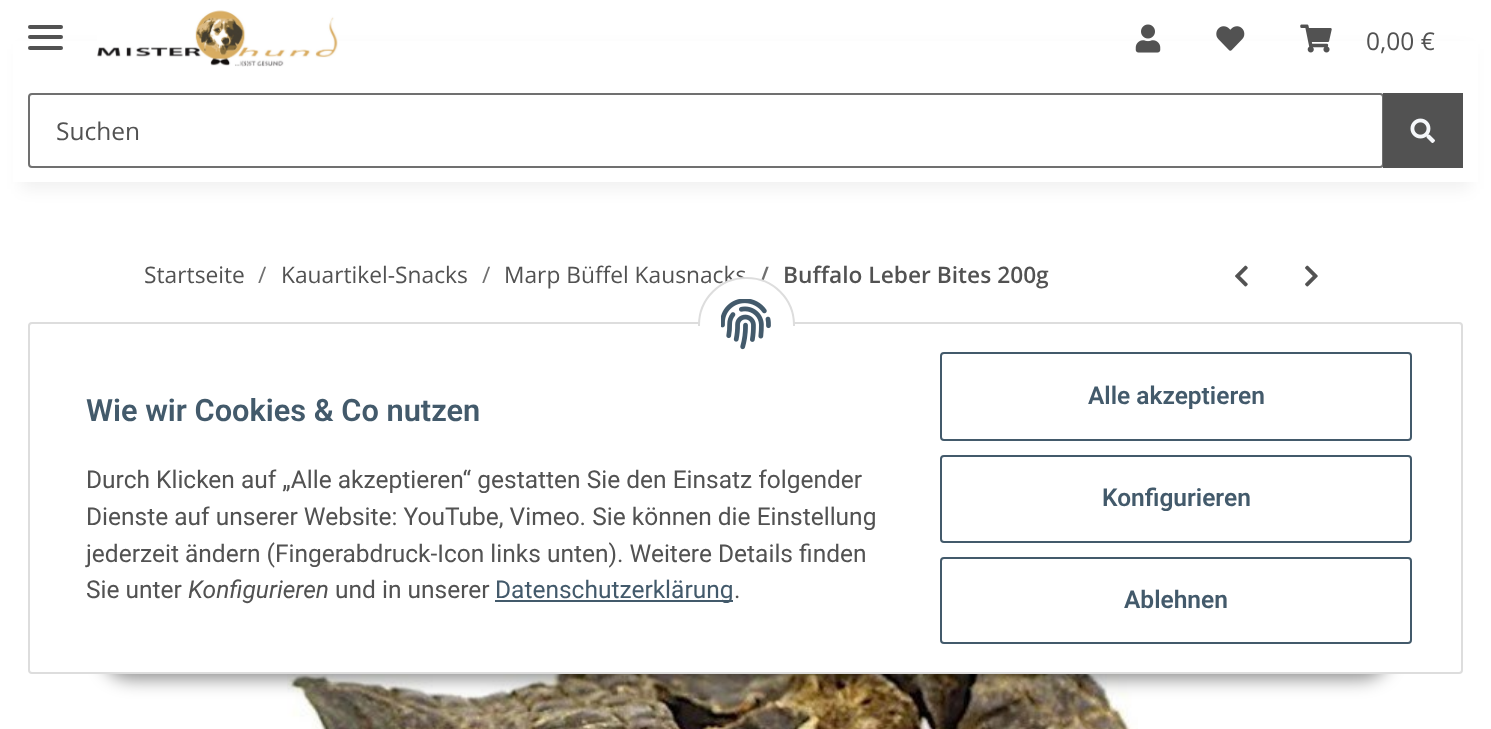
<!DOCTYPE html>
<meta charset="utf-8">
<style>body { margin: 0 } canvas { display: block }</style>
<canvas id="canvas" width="1491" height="729"></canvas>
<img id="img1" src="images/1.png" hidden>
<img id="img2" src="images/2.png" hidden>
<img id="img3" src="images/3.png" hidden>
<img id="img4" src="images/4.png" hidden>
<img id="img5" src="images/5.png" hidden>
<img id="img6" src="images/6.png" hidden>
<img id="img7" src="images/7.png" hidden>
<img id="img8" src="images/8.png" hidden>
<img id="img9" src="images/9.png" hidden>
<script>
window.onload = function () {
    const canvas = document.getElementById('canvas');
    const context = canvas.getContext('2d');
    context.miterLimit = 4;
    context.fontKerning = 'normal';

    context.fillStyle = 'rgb(255, 255, 255)';
    context.fillRect(0, 0, 1491, 729);
    context.fillStyle = 'rgba(0, 0, 0, 0.06)';
    context.filter = 'blur(8px)';
    context.beginPath();
    context.rect(21, 49, 1449, 140);
    context.fill();
    context.filter = 'none';
    context.fillStyle = 'rgb(255, 255, 255)';
    context.fillRect(13, 41, 1465, 141);
    context.fillStyle = 'rgb(82, 82, 82)';
    context.beginPath();
    context.roundRect(28, 35, 35, 4, 2);
    context.fill();
    context.beginPath();
    context.roundRect(28, 25, 35, 4, 2);
    context.fill();
    context.beginPath();
    context.roundRect(28, 46, 35, 4, 2);
    context.fill();
    context.drawImage(document.getElementById('img1'), 97, 10, 241, 57);
    context.drawImage(document.getElementById('img2'), 1135, 24, 26, 29);
    context.drawImage(document.getElementById('img3'), 1216, 26, 29, 25);
    context.drawImage(document.getElementById('img4'), 1300, 24, 32, 29);
    context.beginPath();
    context.roundRect(29, 94, 1354, 73, 3);
    context.strokeStyle = 'rgb(112, 112, 112)';
    context.lineWidth = 2;
    context.stroke();
    context.fillRect(1383, 93, 80, 75);
    context.drawImage(document.getElementById('img5'), 1410, 118, 25, 25);
    context.drawImage(document.getElementById('img6'), 1235, 265, 13, 22);
    context.drawImage(document.getElementById('img7'), 1305, 265, 13, 22);
    context.drawImage(document.getElementById('img8'), 287, 674, 851, 55);
    context.fillStyle = 'rgba(0, 0, 0, 0.45)';
    context.filter = 'blur(9px)';
    context.beginPath();
    context.roundRect(102, 623, 1288, 56, 28);
    context.fill();
    context.filter = 'none';
    context.fillStyle = 'rgb(255, 255, 255)';
    context.beginPath();
    context.roundRect(29, 323, 1433, 350, 3);
    context.fill();
    context.strokeStyle = 'rgb(221, 221, 221)';
    context.stroke();
    context.fillStyle = 'rgb(67, 90, 107)';
    context.fillRect(495, 600, 238, 2);
    context.beginPath();
    context.roundRect(941, 353, 470, 87, 3);
    context.strokeStyle = 'rgb(67, 90, 107)';
    context.stroke();
    context.beginPath();
    context.roundRect(941, 456, 470, 86, 3);
    context.stroke();
    context.beginPath();
    context.roundRect(941, 558, 470, 85, 3);
    context.stroke();
    context.font = '24.5px Open Sans';
    context.fillStyle = 'rgb(82, 82, 82)';
    context.fillText('0,00 €', 1366, 50);
    context.fillText('Suchen', 56, 140);
    context.font = '22.75px Open Sans';
    context.fillText('Startseite', 144, 283);
    context.fillStyle = 'rgb(112, 112, 112)';
    context.fillText('/', 258, 283);
    context.fillStyle = 'rgb(82, 82, 82)';
    context.fillText('Kauartikel-Snacks', 281, 283);
    context.fillStyle = 'rgb(112, 112, 112)';
    context.fillText('/', 482, 283);
    context.fillStyle = 'rgb(82, 82, 82)';
    context.fillText('Marp Büffel Kausnacks', 504, 283);
    context.font = '600 22.75px Open Sans';
    context.fillStyle = 'rgb(112, 112, 112)';
    context.fillText('/', 760, 283);
    context.fillStyle = 'rgb(82, 82, 82)';
    context.fillText('Buffalo Leber Bites 200g', 783, 283);
    context.fillStyle = 'rgb(255, 255, 255)';
    context.beginPath();
    context.roundRect(699, 278, 95, 94, 47);
    context.fill();
    context.strokeStyle = 'rgb(221, 221, 221)';
    context.stroke();
    context.fillRect(698, 326, 97, 47);
    context.drawImage(document.getElementById('img9'), 721, 299, 50, 51);
    context.font = '600 30.75px Roboto';
    context.fillStyle = 'rgb(67, 90, 107)';
    context.fillText('Wie wir Cookies & Co nutzen', 86, 421);
    context.font = '24.5px Roboto';
    context.fillStyle = 'rgb(82, 82, 82)';
    context.fillText('Durch Klicken auf „Alle akzeptieren“ gestatten Sie den Einsatz folgender', 86, 488);
    context.fillText('Dienste auf unserer Website: YouTube, Vimeo. Sie können die Einstellung', 86, 525);
    context.fillText('jederzeit ändern (Fingerabdruck-Icon links unten). Weitere Details finden', 86, 562);
    context.fillText('Sie unter', 86, 598);
    context.font = 'italic 24.5px Roboto';
    context.fillText('Konfigurieren', 188, 598);
    context.font = '24.5px Roboto';
    context.fillText('und in unserer', 335, 598);
    context.fillStyle = 'rgb(67, 90, 107)';
    context.fillText('Datenschutzerklärung', 495, 598);
    context.fillStyle = 'rgb(82, 82, 82)';
    context.fillText('.', 734, 598);
    context.font = '600 24.5px Roboto';
    context.fillStyle = 'rgb(67, 90, 107)';
    context.fillText('Alle akzeptieren', 1088, 404);
    context.fillText('Konfigurieren', 1102, 506);
    context.fillText('Ablehnen', 1124, 608);
};
</script>
